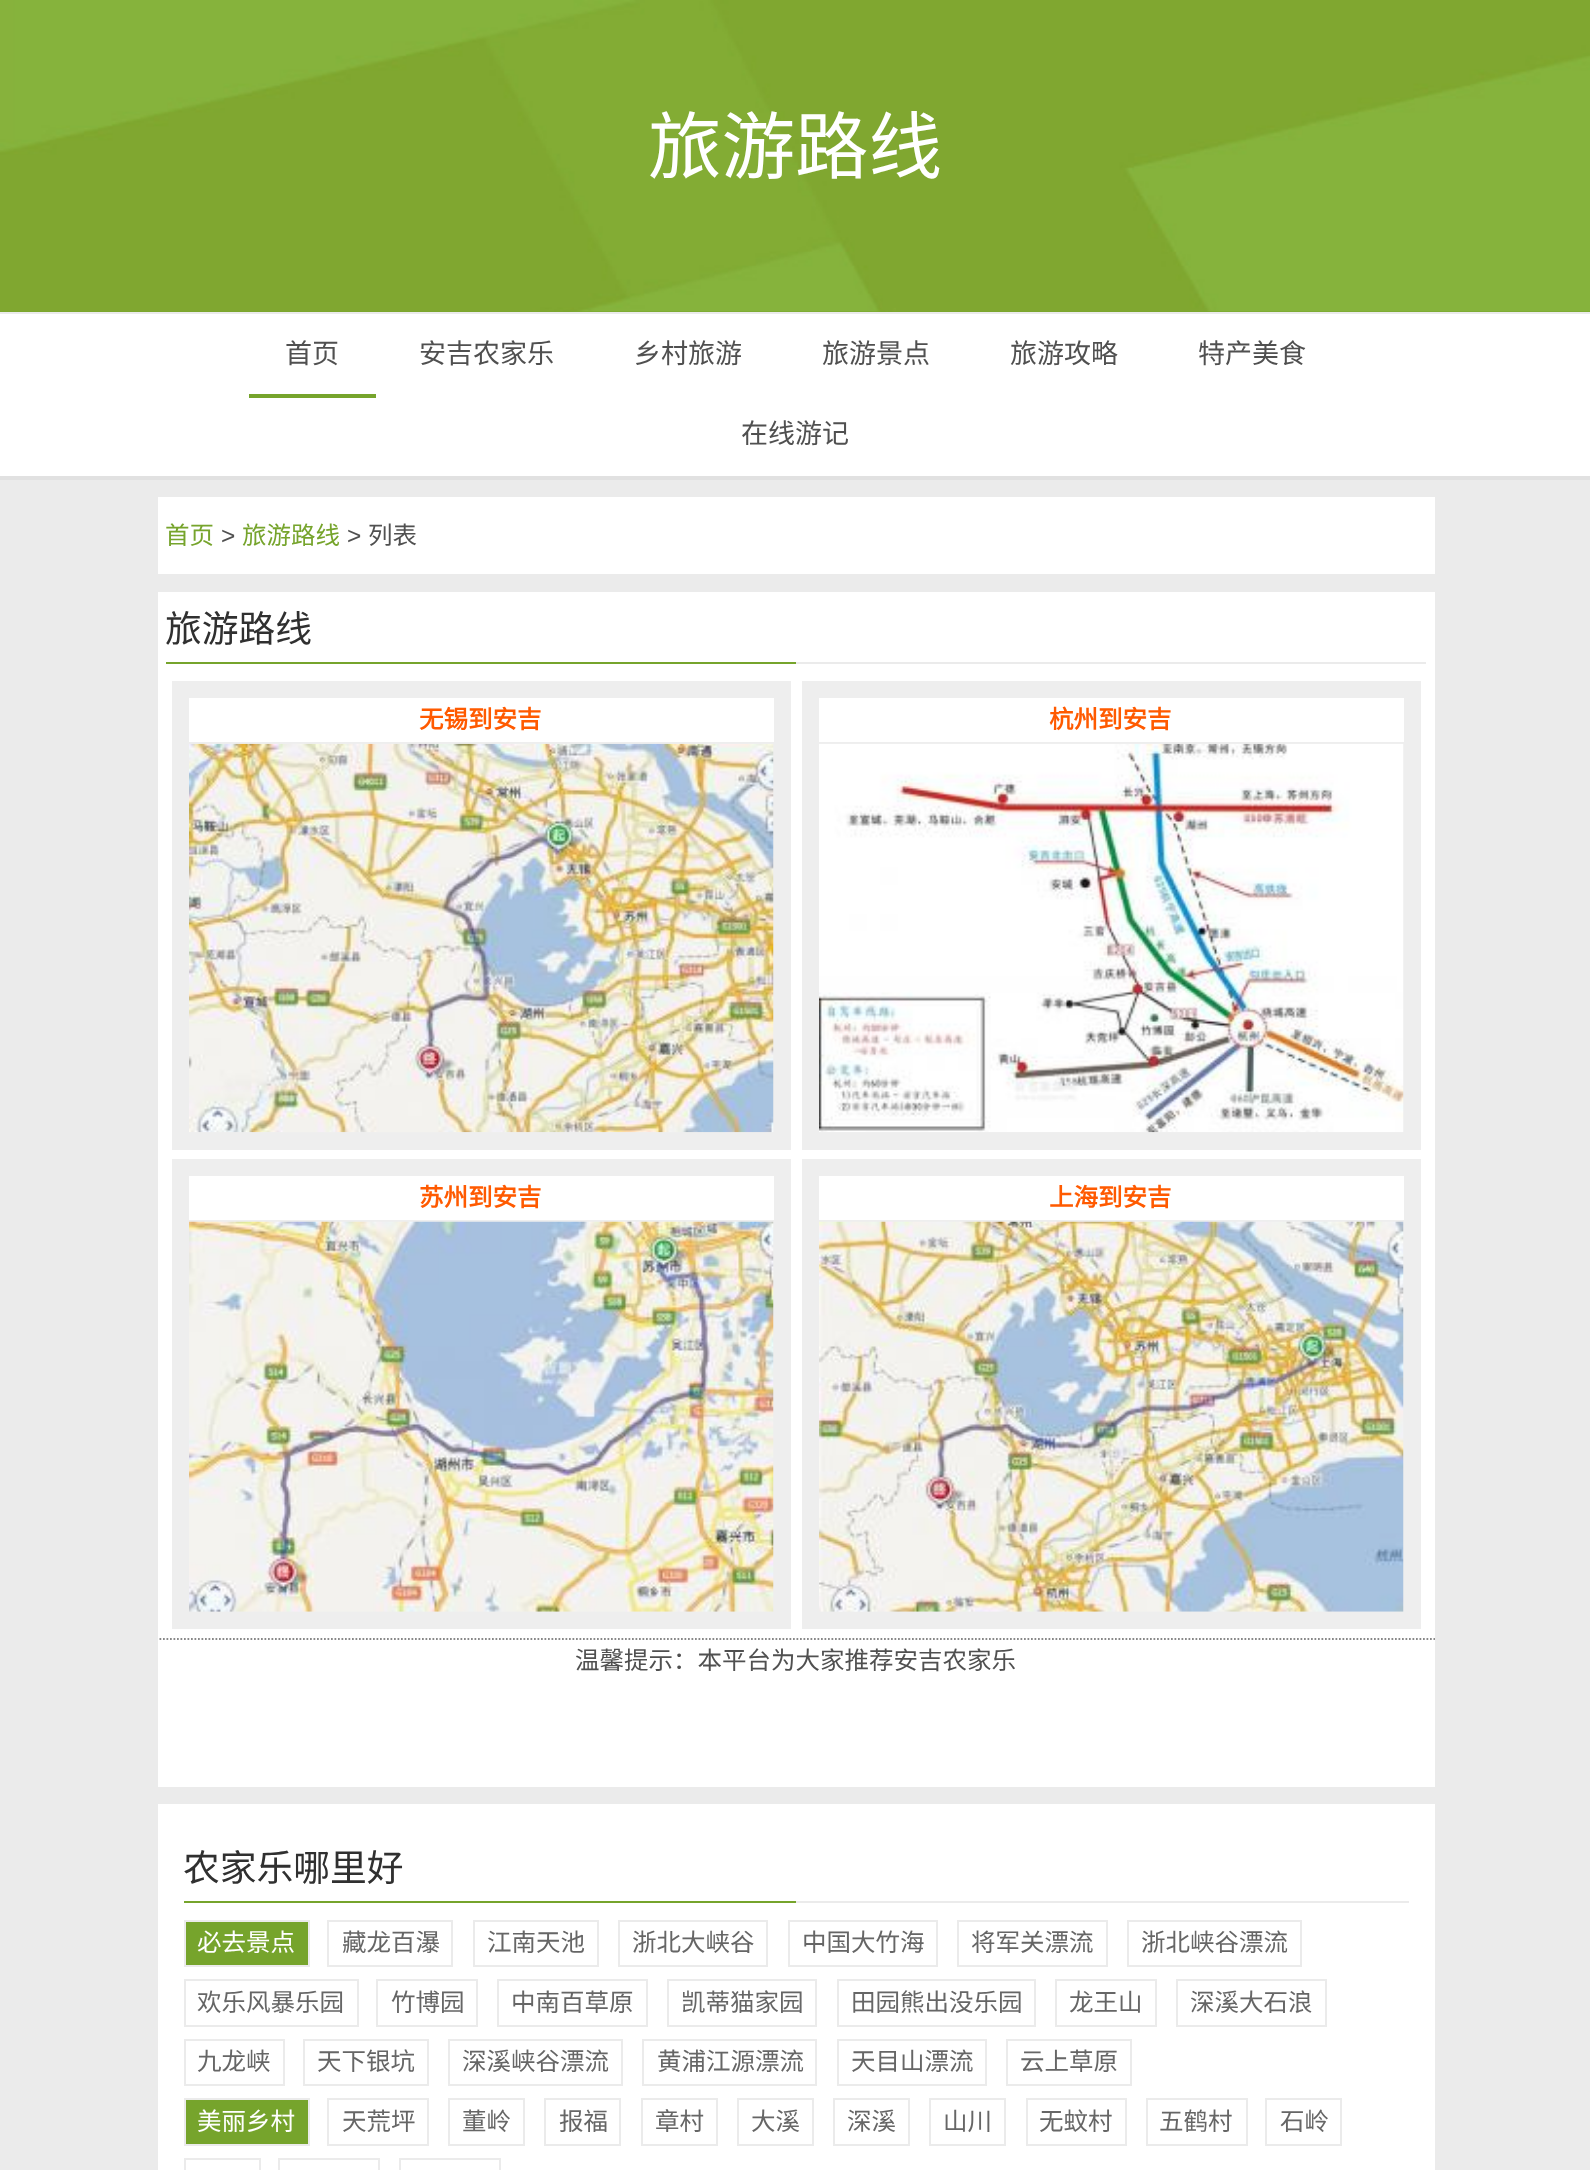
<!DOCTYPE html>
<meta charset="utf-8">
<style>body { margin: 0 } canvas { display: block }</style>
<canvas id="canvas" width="1590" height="2170"></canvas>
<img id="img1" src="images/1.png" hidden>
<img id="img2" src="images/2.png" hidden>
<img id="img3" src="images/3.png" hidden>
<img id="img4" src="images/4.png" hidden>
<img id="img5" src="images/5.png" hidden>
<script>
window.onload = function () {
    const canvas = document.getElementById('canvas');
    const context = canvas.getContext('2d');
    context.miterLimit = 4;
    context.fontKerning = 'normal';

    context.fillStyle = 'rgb(235, 235, 235)';
    context.fillRect(0, 0, 1590, 2170);
    context.fillStyle = 'rgb(118, 164, 44)';
    context.fillRect(0, 311, 1590, 1);
    context.drawImage(document.getElementById('img1'), 0, 0, 1590, 312);
    context.fillStyle = 'rgb(255, 255, 255)';
    context.fillRect(0, 314, 1590, 162);
    context.fillStyle = 'rgb(225, 225, 225)';
    context.fillRect(0, 476, 1590, 4);
    context.fillStyle = 'rgb(118, 164, 44)';
    context.fillRect(249, 394, 127, 4);
    context.fillStyle = 'rgb(255, 255, 255)';
    context.fillRect(158, 497, 1277, 77);
    context.fillRect(158, 592, 1277, 1195);
    context.fillStyle = 'rgb(235, 235, 235)';
    context.fillRect(796, 662, 630, 2);
    context.fillStyle = 'rgb(118, 164, 44)';
    context.fillRect(166, 662, 630, 2);
    context.fillStyle = 'rgb(238, 238, 238)';
    context.fillRect(172, 681, 619, 469);
    context.fillStyle = 'rgb(255, 255, 255)';
    context.fillRect(189, 698, 585, 44);
    context.drawImage(document.getElementById('img2'), 189, 743, 585, 390);
    context.fillStyle = 'rgb(238, 238, 238)';
    context.fillRect(802, 681, 619, 469);
    context.fillStyle = 'rgb(255, 255, 255)';
    context.fillRect(819, 698, 585, 44);
    context.drawImage(document.getElementById('img3'), 819, 743, 585, 390);
    context.fillStyle = 'rgb(238, 238, 238)';
    context.fillRect(172, 1159, 619, 470);
    context.fillStyle = 'rgb(255, 255, 255)';
    context.fillRect(189, 1176, 585, 44);
    context.drawImage(document.getElementById('img4'), 189, 1221, 585, 391);
    context.fillStyle = 'rgb(238, 238, 238)';
    context.fillRect(802, 1159, 619, 470);
    context.fillStyle = 'rgb(255, 255, 255)';
    context.fillRect(819, 1176, 585, 44);
    context.drawImage(document.getElementById('img5'), 819, 1221, 585, 391);
    context.save();
    context.beginPath();
    context.rect(158, 592, 1277, 1195);
    context.clip();
    context.beginPath();
    context.moveTo(149, 1639);
    context.lineTo(1444, 1639);
    context.strokeStyle = 'rgb(136, 136, 136)';
    context.lineWidth = 1.8;
    context.setLineDash([1.75, 1.75]);
    context.stroke();
    context.restore();
    context.fillRect(158, 1804, 1277, 366);
    context.fillStyle = 'rgb(235, 235, 235)';
    context.fillRect(796, 1901, 613, 2);
    context.fillStyle = 'rgb(118, 164, 44)';
    context.fillRect(184, 1901, 612, 2);
    context.beginPath();
    context.rect(185, 1921, 124, 45);
    context.fill();
    context.strokeStyle = 'rgb(235, 235, 235)';
    context.lineWidth = 2;
    context.stroke();
    context.strokeRect(328, 1921, 124, 45);
    context.strokeRect(474, 1921, 124, 45);
    context.strokeRect(619, 1921, 148, 45);
    context.strokeRect(789, 1921, 148, 45);
    context.strokeRect(958, 1921, 149, 45);
    context.strokeRect(1128, 1921, 173, 45);
    context.strokeRect(185, 1980, 173, 46);
    context.strokeRect(377, 1980, 100, 46);
    context.strokeRect(498, 1980, 149, 46);
    context.strokeRect(668, 1980, 148, 46);
    context.strokeRect(838, 1980, 197, 46);
    context.strokeRect(1056, 1980, 100, 46);
    context.strokeRect(1177, 1980, 149, 46);
    context.strokeRect(185, 2040, 99, 45);
    context.strokeRect(304, 2040, 124, 45);
    context.strokeRect(449, 2040, 173, 45);
    context.strokeRect(643, 2040, 173, 45);
    context.strokeRect(838, 2040, 148, 45);
    context.strokeRect(1007, 2040, 124, 45);
    context.beginPath();
    context.rect(185, 2099, 124, 46);
    context.fill();
    context.stroke();
    context.strokeRect(328, 2099, 100, 46);
    context.strokeRect(449, 2099, 75, 46);
    context.strokeRect(545, 2099, 75, 46);
    context.strokeRect(642, 2099, 75, 46);
    context.strokeRect(738, 2099, 75, 46);
    context.strokeRect(834, 2099, 75, 46);
    context.strokeRect(930, 2099, 75, 46);
    context.strokeRect(1027, 2099, 99, 46);
    context.strokeRect(1147, 2099, 100, 46);
    context.strokeRect(1266, 2099, 75, 46);
    context.strokeRect(185, 2159, 75, 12);
    context.strokeRect(279, 2159, 100, 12);
    context.strokeRect(400, 2159, 100, 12);
    context.font = '73.5px Noto Sans CJK SC';
    context.fillStyle = 'rgb(255, 255, 255)';
    context.fillText('旅游路线', 648, 173);
    context.font = '27px Noto Sans CJK SC';
    context.fillStyle = 'rgb(80, 80, 80)';
    context.fillText('首页', 285, 363);
    context.fillText('安吉农家乐', 419, 363);
    context.fillText('乡村旅游', 634, 363);
    context.fillText('旅游景点', 822, 363);
    context.fillText('旅游攻略', 1010, 363);
    context.fillText('特产美食', 1198, 363);
    context.fillText('在线游记', 741, 443);
    context.font = '24.5px Noto Sans CJK SC';
    context.fillStyle = 'rgb(118, 164, 44)';
    context.fillText('首页', 165, 544);
    context.font = '24.5px Liberation Sans';
    context.fillStyle = 'rgb(80, 80, 80)';
    context.fillText('>', 221, 544);
    context.font = '24.5px Noto Sans CJK SC';
    context.fillStyle = 'rgb(118, 164, 44)';
    context.fillText('旅游路线', 242, 544);
    context.font = '24.5px Liberation Sans';
    context.fillStyle = 'rgb(80, 80, 80)';
    context.fillText('>', 347, 544);
    context.font = '24.5px Noto Sans CJK SC';
    context.fillText('列表', 368, 544);
    context.font = '36.75px Noto Sans CJK SC';
    context.fillStyle = 'rgb(48, 48, 48)';
    context.fillText('旅游路线', 165, 642);
    context.font = 'bold 24.5px Noto Sans CJK SC';
    context.fillStyle = 'rgb(255, 90, 0)';
    context.fillText('无锡到安吉', 419, 728);
    context.fillText('杭州到安吉', 1049, 728);
    context.fillText('苏州到安吉', 419, 1206);
    context.fillText('上海到安吉', 1049, 1206);
    context.font = '24.5px Noto Sans CJK SC';
    context.fillStyle = 'rgb(80, 80, 80)';
    context.fillText('温馨提示：本平台为大家推荐安吉农家乐', 575, 1669);
    context.font = '36.75px Noto Sans CJK SC';
    context.fillStyle = 'rgb(48, 48, 48)';
    context.fillText('农家乐哪里好', 183, 1881);
    context.font = '24.5px Noto Sans CJK SC';
    context.fillStyle = 'rgb(255, 255, 255)';
    context.fillText('必去景点', 197, 1951);
    context.fillStyle = 'rgb(102, 102, 102)';
    context.fillText('藏龙百瀑', 342, 1951);
    context.fillText('江南天池', 487, 1951);
    context.fillText('浙北大峡谷', 632, 1951);
    context.fillText('中国大竹海', 802, 1951);
    context.fillText('将军关漂流', 971, 1951);
    context.fillText('浙北峡谷漂流', 1141, 1951);
    context.fillText('欢乐风暴乐园', 197, 2011);
    context.fillText('竹博园', 391, 2011);
    context.fillText('中南百草原', 511, 2011);
    context.fillText('凯蒂猫家园', 681, 2011);
    context.fillText('田园熊出没乐园', 851, 2011);
    context.fillText('龙王山', 1069, 2011);
    context.fillText('深溪大石浪', 1190, 2011);
    context.fillText('九龙峡', 197, 2070);
    context.fillText('天下银坑', 317, 2070);
    context.fillText('深溪峡谷漂流', 462, 2070);
    context.fillText('黄浦江源漂流', 657, 2070);
    context.fillText('天目山漂流', 851, 2070);
    context.fillText('云上草原', 1020, 2070);
    context.fillStyle = 'rgb(255, 255, 255)';
    context.fillText('美丽乡村', 197, 2130);
    context.fillStyle = 'rgb(102, 102, 102)';
    context.fillText('天荒坪', 342, 2130);
    context.fillText('董岭', 462, 2130);
    context.fillText('报福', 559, 2130);
    context.fillText('章村', 655, 2130);
    context.fillText('大溪', 751, 2130);
    context.fillText('深溪', 847, 2130);
    context.fillText('山川', 943, 2130);
    context.fillText('无蚊村', 1039, 2130);
    context.fillText('五鹤村', 1159, 2130);
    context.fillText('石岭', 1280, 2130);
};
</script>
